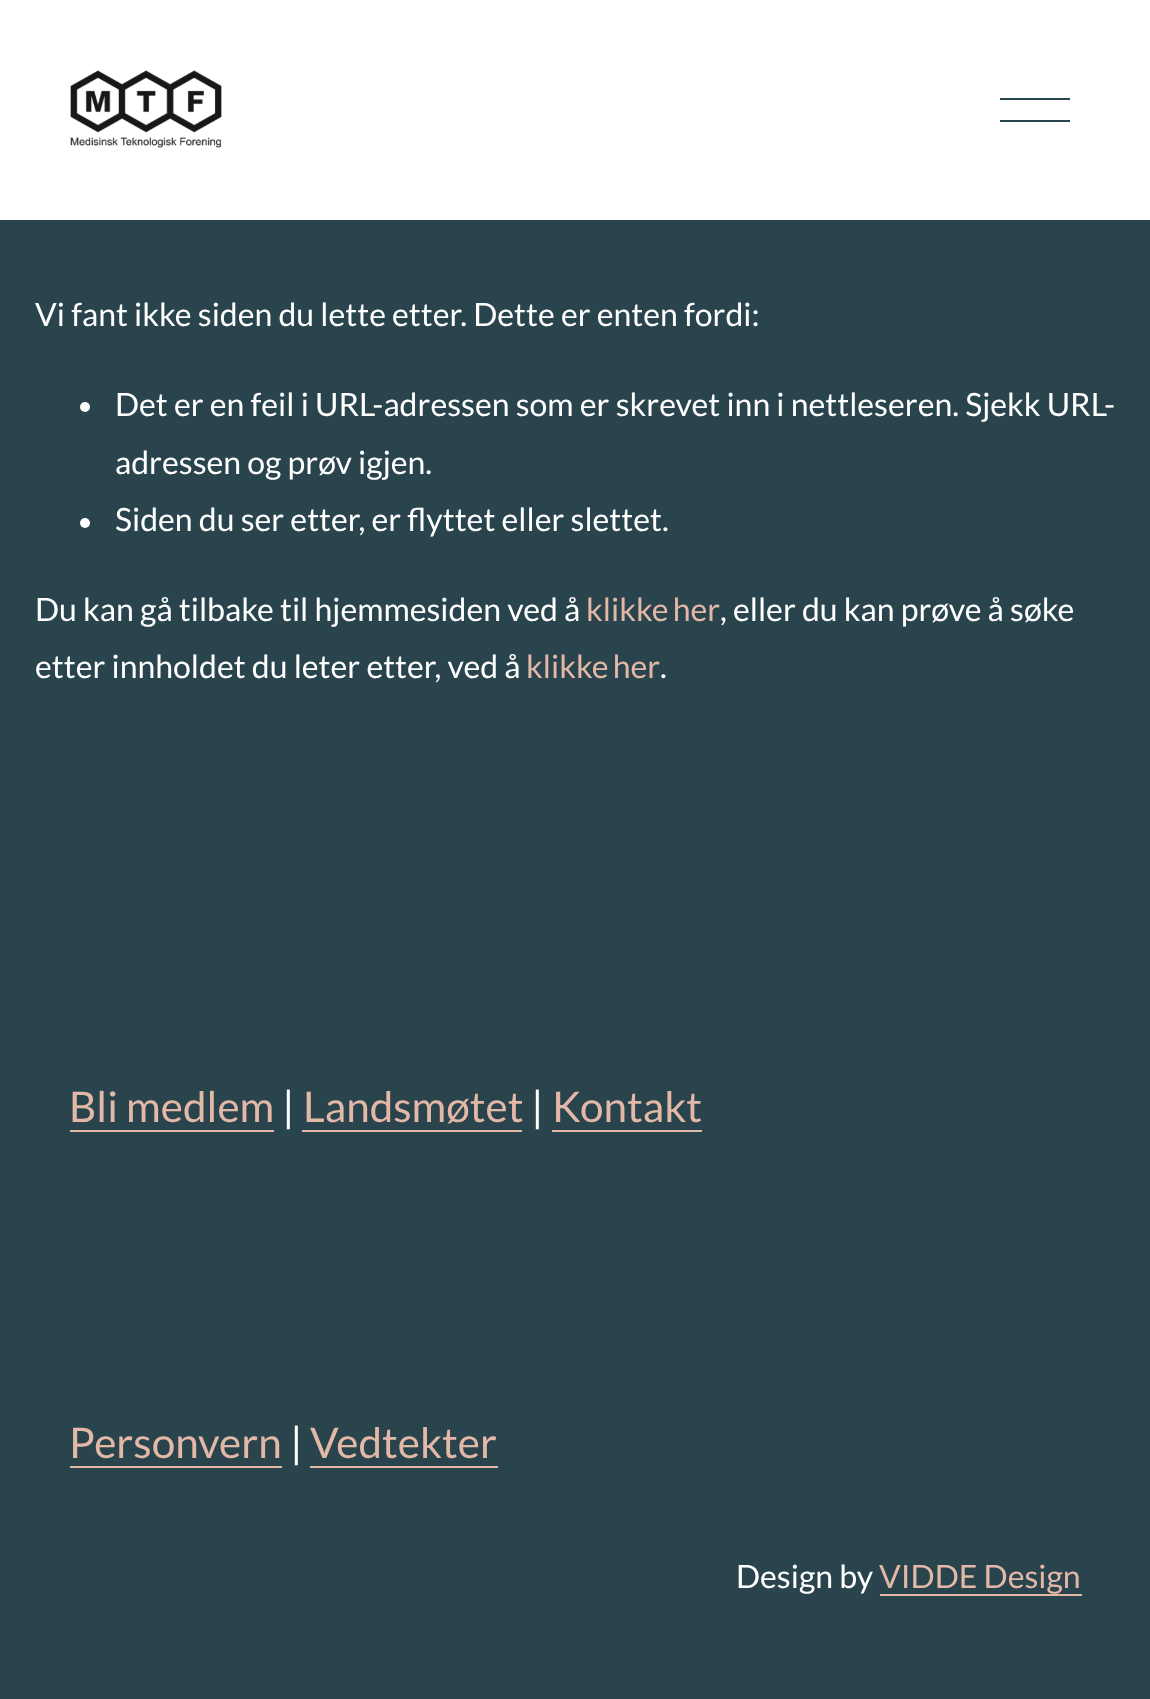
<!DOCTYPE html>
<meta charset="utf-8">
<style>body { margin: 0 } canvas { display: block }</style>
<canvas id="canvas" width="1150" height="1699"></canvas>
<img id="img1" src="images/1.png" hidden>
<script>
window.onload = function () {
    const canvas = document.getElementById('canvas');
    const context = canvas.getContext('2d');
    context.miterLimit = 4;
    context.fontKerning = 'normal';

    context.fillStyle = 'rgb(41, 68, 77)';
    context.fillRect(0, 0, 1150, 1699);
    context.fillStyle = 'rgb(255, 255, 255)';
    context.fillRect(0, 0, 1150, 220);
    context.drawImage(document.getElementById('img1'), 70, 70, 152, 78);
    context.fillStyle = 'rgb(41, 68, 77)';
    context.fillRect(1000, 98, 70, 2);
    context.fillRect(1000, 120, 70, 2);
    context.fillStyle = 'rgb(255, 255, 255)';
    context.beginPath();
    context.arc(85, 407, 5, 0, 2 * Math.PI);
    context.fill();
    context.beginPath();
    context.arc(85, 523, 5, 0, 2 * Math.PI);
    context.fill();
    context.fillStyle = 'rgb(227, 184, 167)';
    context.fillRect(70, 1130, 204, 2);
    context.fillRect(302, 1130, 220, 2);
    context.fillRect(552, 1130, 150, 2);
    context.fillRect(70, 1466, 212, 2);
    context.fillRect(310, 1466, 188, 2);
    context.fillRect(880, 1594, 202, 2);
    context.font = '32px Lato';
    context.fillStyle = 'rgb(255, 255, 255)';
    context.fillText('Vi fant ikke siden du lette etter. Dette er enten fordi:', 35, 326);
    context.fillText('Det er en feil i URL-adressen som er skrevet inn i nettleseren. Sjekk URL-', 115, 416);
    context.fillText('adressen og prøv igjen.', 115, 474);
    context.fillText('Siden du ser etter, er flyttet eller slettet.', 115, 531);
    context.fillText('Du kan gå tilbake til hjemmesiden ved å', 35, 621);
    context.wordSpacing = '-2px';
    context.fillStyle = 'rgb(227, 184, 167)';
    context.fillText('klikke her', 586, 621);
    context.wordSpacing = '0px';
    context.fillStyle = 'rgb(255, 255, 255)';
    context.fillText(', eller du kan prøve å søke', 720, 621);
    context.fillText('etter innholdet du leter etter, ved å', 35, 678);
    context.wordSpacing = '-2px';
    context.fillStyle = 'rgb(227, 184, 167)';
    context.fillText('klikke her', 526, 678);
    context.wordSpacing = '0px';
    context.fillStyle = 'rgb(255, 255, 255)';
    context.fillText('.', 660, 678);
    context.font = '42.25px Lato';
    context.fillStyle = 'rgb(227, 184, 167)';
    context.fillText('Bli medlem', 69, 1122);
    context.fillStyle = 'rgb(255, 255, 255)';
    context.fillText('|', 282, 1122);
    context.fillStyle = 'rgb(227, 184, 167)';
    context.fillText('Landsmøtet', 303, 1122);
    context.fillStyle = 'rgb(255, 255, 255)';
    context.fillText('|', 531, 1122);
    context.fillStyle = 'rgb(227, 184, 167)';
    context.fillText('Kontakt', 552, 1122);
    context.fillText('Personvern', 69, 1458);
    context.fillStyle = 'rgb(255, 255, 255)';
    context.fillText('|', 290, 1458);
    context.fillStyle = 'rgb(227, 184, 167)';
    context.fillText('Vedtekter', 310, 1458);
    context.font = '32px Lato';
    context.fillStyle = 'rgb(255, 255, 255)';
    context.fillText('Design by', 736, 1588);
    context.fillStyle = 'rgb(227, 184, 167)';
    context.fillText('VIDDE Design', 879, 1588);
};
</script>
